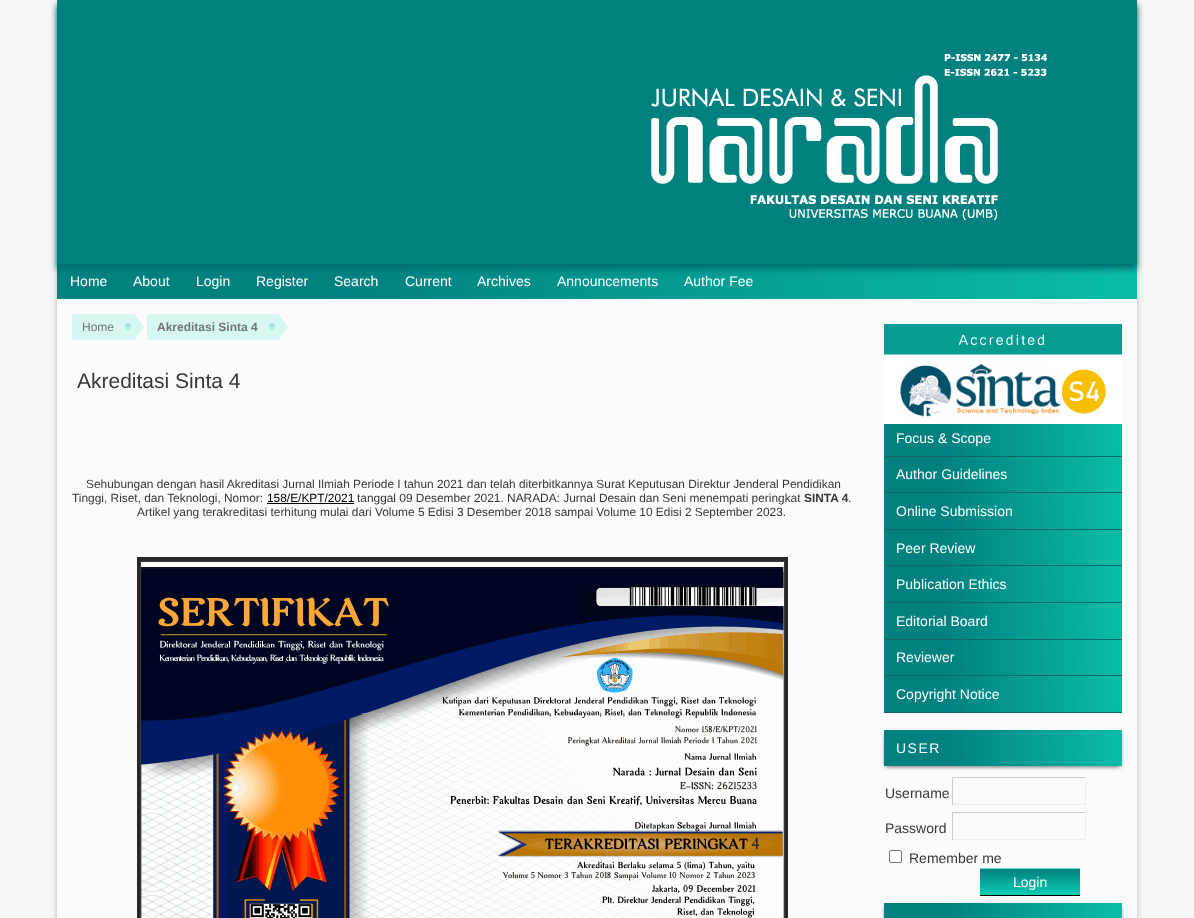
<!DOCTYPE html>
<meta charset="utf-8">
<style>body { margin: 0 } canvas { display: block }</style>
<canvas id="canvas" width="1194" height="918"></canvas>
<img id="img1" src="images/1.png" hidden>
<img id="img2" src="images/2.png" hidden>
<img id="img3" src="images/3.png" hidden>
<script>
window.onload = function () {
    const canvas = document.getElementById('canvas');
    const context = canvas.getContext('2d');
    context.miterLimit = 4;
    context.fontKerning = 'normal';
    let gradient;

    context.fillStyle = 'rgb(247, 247, 247)';
    context.fillRect(0, 0, 1194, 918);
    context.fillStyle = 'rgb(187, 187, 187)';
    context.filter = 'blur(3px)';
    context.beginPath();
    context.rect(57, 5, 1080, 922);
    context.fill();
    context.filter = 'none';
    context.fillStyle = 'rgb(251, 251, 251)';
    context.fillRect(57, 299, 1080, 619);
    gradient = context.createLinearGradient(58, 310, 1136, 253);
    gradient.addColorStop(0.25, 'rgb(1, 128, 128)');
    gradient.addColorStop(1, 'rgb(10, 189, 168)');
    context.fillStyle = gradient;
    context.fillRect(57, 264, 1080, 35);
    context.fillStyle = 'rgb(1, 111, 111)';
    context.filter = 'blur(3px)';
    context.beginPath();
    context.rect(57, 5, 1080, 264);
    context.fill();
    context.filter = 'none';
    context.fillStyle = 'rgb(1, 128, 128)';
    context.fillRect(57, 0, 1080, 264);
    context.drawImage(document.getElementById('img1'), 651, 54, 396, 166);
    context.fillStyle = 'rgb(214, 247, 242)';
    context.beginPath();
    context.roundRect(72, 314, 72, 26, [3, 0, 0, 3]);
    context.fill();
    context.fillStyle = 'rgb(174, 238, 229)';
    context.beginPath();
    context.arc(128, 327, 3, 0, 2 * Math.PI);
    context.fill();
    context.fillStyle = 'rgba(0, 0, 0, 0.25)';
    context.beginPath();
    context.moveTo(128, 325);
    context.bezierCurveTo(130, 325, 131, 326, 131, 327.5);
    context.bezierCurveTo(131.5, 323, 124.5, 323, 125, 327.5);
    context.bezierCurveTo(125, 326, 126, 325, 128, 325);
    context.closePath();
    context.fill();
    context.fillStyle = 'rgb(251, 251, 251)';
    context.fillRect(134, 314, 10, 26);
    context.fillStyle = 'rgb(214, 247, 242)';
    context.beginPath();
    context.moveTo(134, 340);
    context.lineTo(134, 314);
    context.lineTo(144, 327);
    context.closePath();
    context.fill();
    context.beginPath();
    context.roundRect(147, 314, 141, 26, [3, 0, 0, 3]);
    context.fill();
    context.fillStyle = 'rgb(174, 238, 229)';
    context.beginPath();
    context.arc(272, 327, 3, 0, 2 * Math.PI);
    context.fill();
    context.fillStyle = 'rgba(0, 0, 0, 0.25)';
    context.beginPath();
    context.moveTo(272, 325);
    context.bezierCurveTo(274, 325, 275, 326, 275, 327.5);
    context.bezierCurveTo(275.5, 323, 268.5, 323, 269, 327.5);
    context.bezierCurveTo(269, 326, 270, 325, 272, 325);
    context.closePath();
    context.fill();
    context.fillStyle = 'rgb(251, 251, 251)';
    context.fillRect(278, 314, 10, 26);
    context.fillStyle = 'rgb(214, 247, 242)';
    context.beginPath();
    context.moveTo(278, 340);
    context.lineTo(278, 314);
    context.lineTo(288, 327);
    context.closePath();
    context.fill();
    context.fillStyle = 'rgb(0, 0, 0)';
    context.fillRect(267, 503, 87, 1);
    context.drawImage(document.getElementById('img2'), 137, 557, 651, 361);
    context.drawImage(document.getElementById('img3'), 884, 324, 238, 100);
    gradient = context.createLinearGradient(883, 444, 1123, 432);
    gradient.addColorStop(0.25, 'rgb(1, 128, 128)');
    gradient.addColorStop(1, 'rgb(10, 189, 168)');
    context.fillStyle = gradient;
    context.fillRect(884, 424, 238, 32);
    context.fillStyle = 'rgb(19, 104, 103)';
    context.fillRect(884, 456, 238, 1);
    gradient = context.createLinearGradient(883, 481, 1123, 468);
    gradient.addColorStop(0.25, 'rgb(1, 128, 128)');
    gradient.addColorStop(1, 'rgb(10, 189, 168)');
    context.fillStyle = gradient;
    context.fillRect(884, 457, 238, 35);
    context.fillStyle = 'rgb(19, 104, 103)';
    context.fillRect(884, 492, 238, 1);
    gradient = context.createLinearGradient(883, 517, 1123, 505);
    gradient.addColorStop(0.25, 'rgb(1, 128, 128)');
    gradient.addColorStop(1, 'rgb(10, 189, 168)');
    context.fillStyle = gradient;
    context.fillRect(884, 493, 238, 36);
    context.fillStyle = 'rgb(19, 104, 103)';
    context.fillRect(884, 529, 238, 1);
    gradient = context.createLinearGradient(883, 554, 1123, 541);
    gradient.addColorStop(0.25, 'rgb(1, 128, 128)');
    gradient.addColorStop(1, 'rgb(10, 189, 168)');
    context.fillStyle = gradient;
    context.fillRect(884, 530, 238, 35);
    context.fillStyle = 'rgb(19, 104, 103)';
    context.fillRect(884, 565, 238, 1);
    gradient = context.createLinearGradient(883, 590, 1123, 578);
    gradient.addColorStop(0.25, 'rgb(1, 128, 128)');
    gradient.addColorStop(1, 'rgb(10, 189, 168)');
    context.fillStyle = gradient;
    context.fillRect(884, 566, 238, 36);
    context.fillStyle = 'rgb(19, 104, 103)';
    context.fillRect(884, 602, 238, 1);
    gradient = context.createLinearGradient(883, 627, 1123, 615);
    gradient.addColorStop(0.25, 'rgb(1, 128, 128)');
    gradient.addColorStop(1, 'rgb(10, 189, 168)');
    context.fillStyle = gradient;
    context.fillRect(884, 603, 238, 36);
    context.fillStyle = 'rgb(19, 104, 103)';
    context.fillRect(884, 639, 238, 1);
    gradient = context.createLinearGradient(883, 664, 1123, 651);
    gradient.addColorStop(0.25, 'rgb(1, 128, 128)');
    gradient.addColorStop(1, 'rgb(10, 189, 168)');
    context.fillStyle = gradient;
    context.fillRect(884, 640, 238, 35);
    context.fillStyle = 'rgb(19, 104, 103)';
    context.fillRect(884, 675, 238, 1);
    gradient = context.createLinearGradient(883, 700, 1123, 688);
    gradient.addColorStop(0.25, 'rgb(1, 128, 128)');
    gradient.addColorStop(1, 'rgb(10, 189, 168)');
    context.fillStyle = gradient;
    context.fillRect(884, 676, 238, 36);
    context.fillStyle = 'rgb(19, 104, 103)';
    context.fillRect(884, 712, 238, 1);
    context.fillStyle = 'rgb(51, 51, 51)';
    context.filter = 'blur(2.5px)';
    context.beginPath();
    context.rect(886, 734, 234, 32);
    context.fill();
    context.filter = 'none';
    gradient = context.createLinearGradient(883, 754, 1123, 742);
    gradient.addColorStop(0.25, 'rgb(1, 128, 128)');
    gradient.addColorStop(1, 'rgb(10, 189, 168)');
    context.fillStyle = gradient;
    context.fillRect(884, 730, 238, 36);
    context.fillStyle = 'rgb(204, 204, 204)';
    context.fillRect(952, 777, 134, 1);
    context.fillStyle = 'rgb(238, 238, 238)';
    context.fillRect(1085, 777, 1, 28);
    context.fillRect(952, 804, 134, 1);
    context.fillStyle = 'rgb(204, 204, 204)';
    context.fillRect(952, 777, 1, 28);
    context.fillRect(952, 812, 134, 1);
    context.fillStyle = 'rgb(238, 238, 238)';
    context.fillRect(1085, 812, 1, 28);
    context.fillRect(952, 839, 134, 1);
    context.fillStyle = 'rgb(204, 204, 204)';
    context.fillRect(952, 812, 1, 28);
    context.fillStyle = 'rgb(255, 255, 255)';
    context.beginPath();
    context.roundRect(889.5, 850.5, 12, 12, 1.5);
    context.fill();
    context.strokeStyle = 'rgb(118, 118, 118)';
    context.stroke();
    context.fillStyle = 'rgb(0, 0, 0)';
    context.fillRect(980, 895, 100, 1);
    gradient = context.createLinearGradient(1030, 869, 1030, 895);
    gradient.addColorStop(0, 'rgb(1, 128, 128)');
    gradient.addColorStop(1, 'rgb(12, 205, 179)');
    context.fillStyle = gradient;
    context.fillRect(980, 869, 100, 26);
    context.fillStyle = 'rgb(93, 222, 205)';
    context.fillRect(980, 868, 100, 1);
    context.fillStyle = 'rgb(51, 51, 51)';
    context.filter = 'blur(2.5px)';
    context.beginPath();
    context.rect(886, 907, 234, 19);
    context.fill();
    context.filter = 'none';
    gradient = context.createLinearGradient(883, 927, 1123, 914);
    gradient.addColorStop(0.25, 'rgb(1, 128, 128)');
    gradient.addColorStop(1, 'rgb(10, 189, 168)');
    context.fillStyle = gradient;
    context.fillRect(884, 903, 238, 15);
    context.font = '14px Liberation Sans';
    context.fillStyle = 'rgb(255, 255, 255)';
    context.fillText('Home', 70, 286);
    context.fillText('About', 133, 286);
    context.fillText('Login', 196, 286);
    context.fillText('Register', 256, 286);
    context.fillText('Search', 334, 286);
    context.fillText('Current', 405, 286);
    context.fillText('Archives', 477, 286);
    context.fillText('Announcements', 557, 286);
    context.fillText('Author Fee', 684, 286);
    context.font = '12px Liberation Sans';
    context.fillStyle = 'rgb(117, 117, 117)';
    context.fillText('Home', 82, 331);
    context.font = 'bold 12px Liberation Sans';
    context.fillText('Akreditasi Sinta 4', 157, 331);
    context.font = '21px Liberation Sans';
    context.fillStyle = 'rgb(54, 55, 54)';
    context.fillText('Akreditasi Sinta 4', 77, 388);
    context.font = '11.9px Liberation Sans';
    context.fillText('Sehubungan dengan hasil Akreditasi Jurnal Ilmiah Periode I tahun 2021 dan telah diterbitkannya Surat Keputusan Direktur Jenderal Pendidikan', 86, 488);
    context.fillText('Tinggi, Riset, dan Teknologi, Nomor:', 72, 502);
    context.fillStyle = 'rgb(0, 0, 0)';
    context.fillText('158/E/KPT/2021', 267, 502);
    context.fillStyle = 'rgb(54, 55, 54)';
    context.fillText('tanggal 09 Desember 2021. NARADA: Jurnal Desain dan Seni menempati peringkat', 357, 502);
    context.font = 'bold 11.9px Liberation Sans';
    context.fillText('SINTA 4', 804, 502);
    context.font = '11.9px Liberation Sans';
    context.fillText('.', 848, 502);
    context.fillText('Artikel yang terakreditasi terhitung mulai dari Volume 5 Edisi 3 Desember 2018 sampai Volume 10 Edisi 2 September 2023.', 137, 516);
    context.font = '14px Liberation Sans';
    context.fillStyle = 'rgb(255, 255, 255)';
    context.fillText('Focus & Scope', 896, 443);
    context.fillText('Author Guidelines', 896, 479);
    context.fillText('Online Submission', 896, 516);
    context.fillText('Peer Review', 896, 553);
    context.fillText('Publication Ethics', 896, 589);
    context.fillText('Editorial Board', 896, 626);
    context.fillText('Reviewer', 896, 662);
    context.fillText('Copyright Notice', 896, 699);
    context.letterSpacing = '1.5px';
    context.fillText('USER', 896, 753);
    context.letterSpacing = '0px';
    context.fillStyle = 'rgb(54, 55, 54)';
    context.fillText('Username', 885, 798);
    context.fillText('Password', 885, 833);
    context.fillText('Remember me', 909, 863);
    context.fillStyle = 'rgb(255, 255, 255)';
    context.fillText('Login', 1013, 887);
};
</script>
